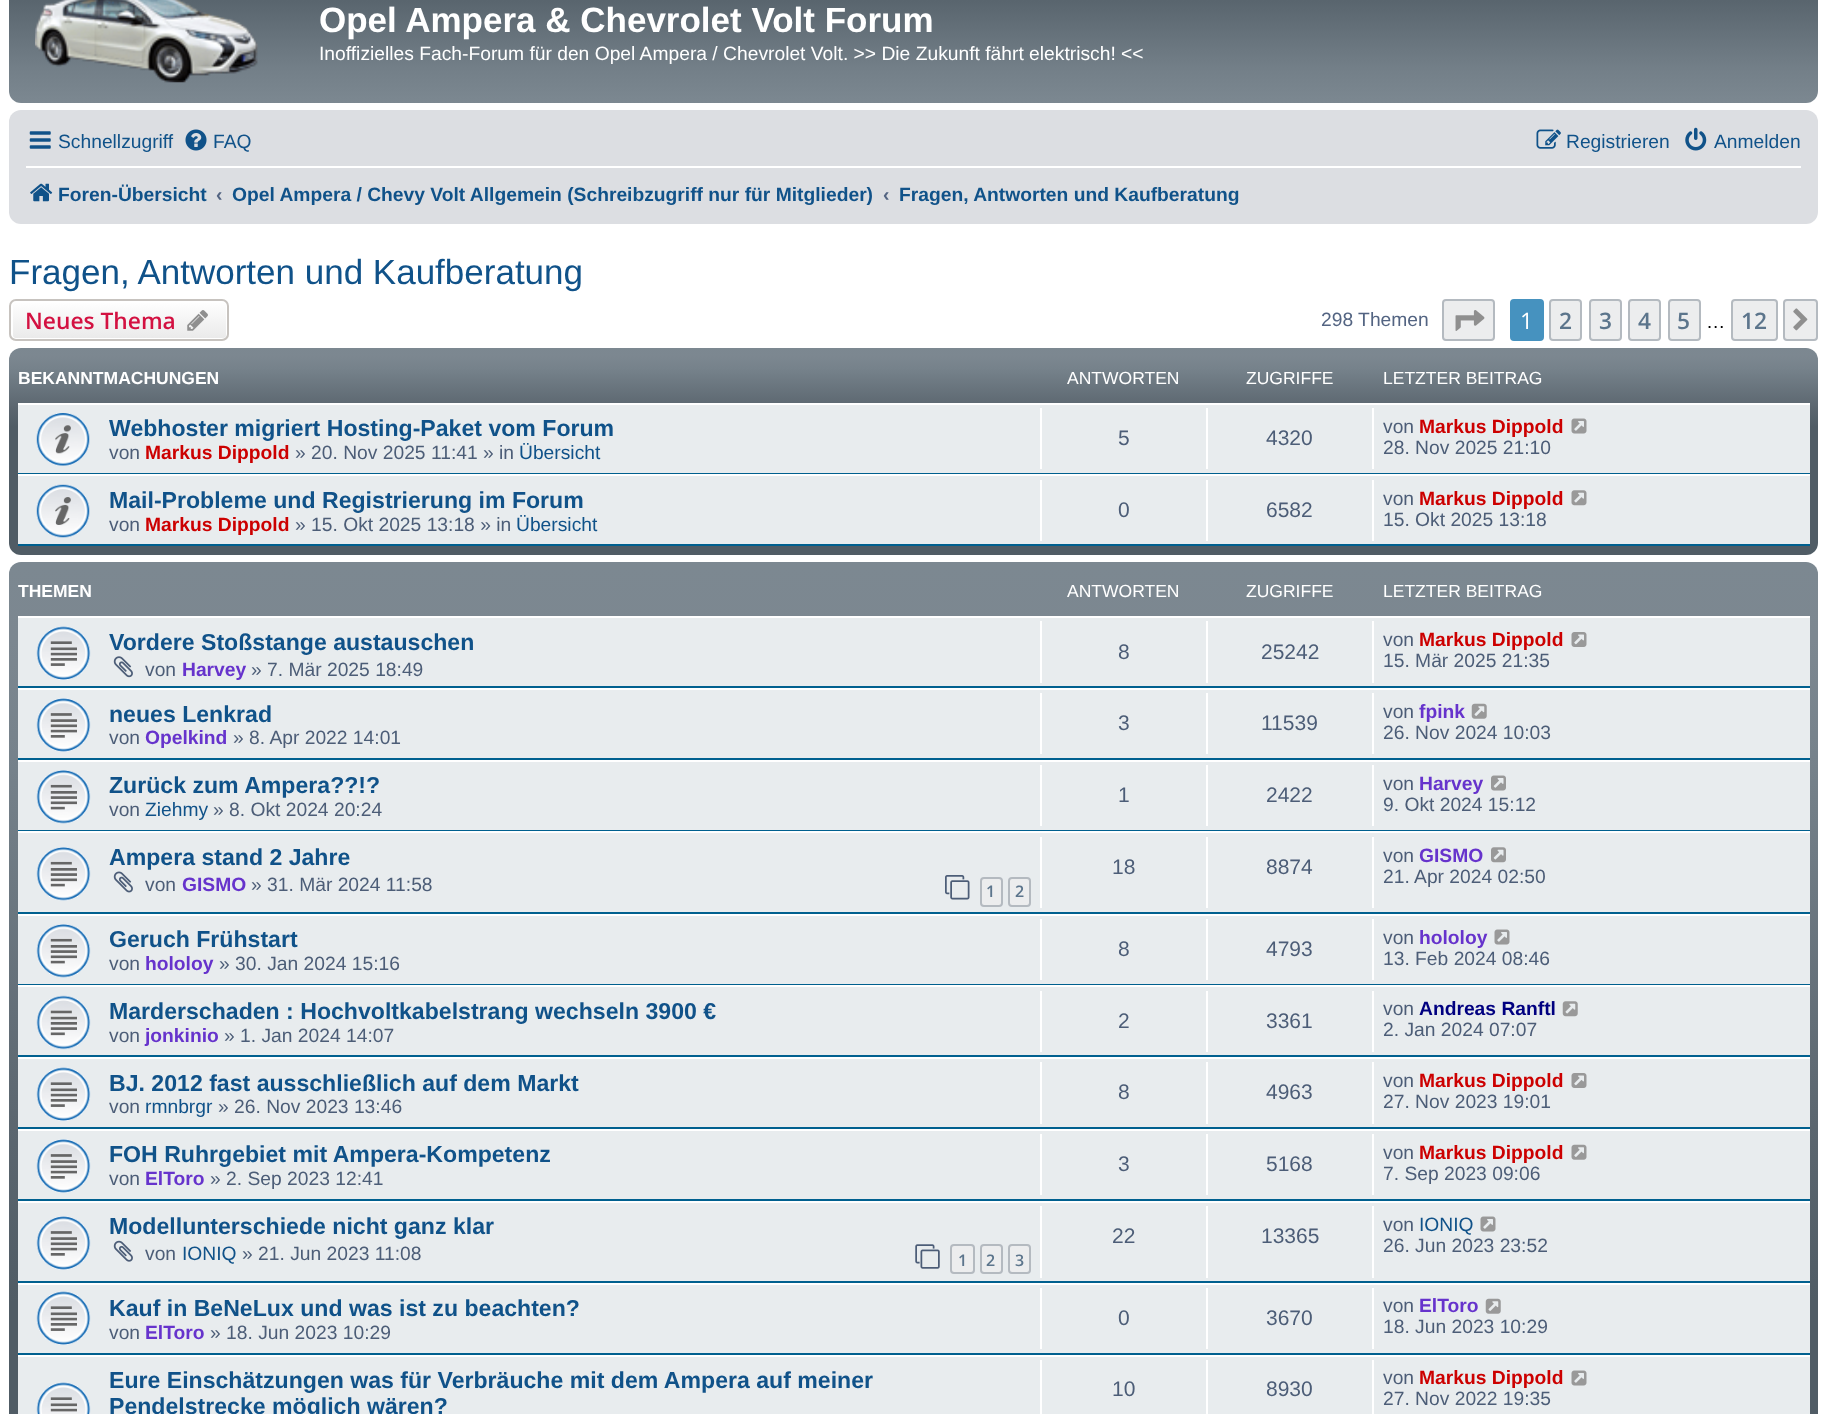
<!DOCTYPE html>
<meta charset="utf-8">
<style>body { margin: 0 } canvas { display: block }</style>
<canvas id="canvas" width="1827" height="1414"></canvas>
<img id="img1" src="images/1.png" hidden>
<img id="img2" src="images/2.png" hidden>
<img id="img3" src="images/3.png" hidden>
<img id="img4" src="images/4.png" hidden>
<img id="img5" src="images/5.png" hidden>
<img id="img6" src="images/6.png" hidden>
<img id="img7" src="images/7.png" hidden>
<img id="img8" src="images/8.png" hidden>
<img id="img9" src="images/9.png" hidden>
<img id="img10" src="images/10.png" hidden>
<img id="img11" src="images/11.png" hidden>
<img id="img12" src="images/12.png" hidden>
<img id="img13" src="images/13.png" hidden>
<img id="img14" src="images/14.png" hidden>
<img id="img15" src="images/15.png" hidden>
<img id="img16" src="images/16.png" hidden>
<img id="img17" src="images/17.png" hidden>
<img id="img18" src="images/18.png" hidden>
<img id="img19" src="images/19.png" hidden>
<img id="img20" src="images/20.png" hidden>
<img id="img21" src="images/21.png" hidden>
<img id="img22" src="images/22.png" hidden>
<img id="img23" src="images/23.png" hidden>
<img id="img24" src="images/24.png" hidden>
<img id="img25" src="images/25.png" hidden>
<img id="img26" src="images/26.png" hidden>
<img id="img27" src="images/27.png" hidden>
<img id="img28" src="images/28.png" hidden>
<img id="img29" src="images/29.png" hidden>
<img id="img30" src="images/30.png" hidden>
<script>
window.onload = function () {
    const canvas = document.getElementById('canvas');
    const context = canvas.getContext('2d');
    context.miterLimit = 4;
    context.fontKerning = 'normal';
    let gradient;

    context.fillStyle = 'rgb(255, 255, 255)';
    context.fillRect(0, 0, 1827, 1414);
    gradient = context.createLinearGradient(914, -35, 914, 103);
    gradient.addColorStop(0, 'rgb(110, 119, 127)');
    gradient.addColorStop(0.01, 'rgb(80, 92, 101)');
    gradient.addColorStop(0.2, 'rgb(86, 98, 107)');
    gradient.addColorStop(0.75, 'rgb(115, 127, 136)');
    gradient.addColorStop(1, 'rgb(124, 136, 145)');
    context.fillStyle = gradient;
    context.beginPath();
    context.roundRect(9, -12, 1809, 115, 12);
    context.fill();
    context.drawImage(document.getElementById('img1'), 35, 0, 223, 83);
    context.fillStyle = 'rgb(220, 222, 226)';
    context.beginPath();
    context.roundRect(9, 110, 1809, 114, 12);
    context.fill();
    context.drawImage(document.getElementById('img2'), 29, 131, 22, 18);
    context.drawImage(document.getElementById('img3'), 185, 129, 22, 22);
    context.drawImage(document.getElementById('img4'), 1536, 129, 25, 20);
    context.drawImage(document.getElementById('img5'), 1685, 127, 22, 24);
    context.fillStyle = 'rgb(255, 255, 255)';
    context.fillRect(26, 166, 1775, 2);
    context.drawImage(document.getElementById('img6'), 30, 183, 23, 19);
    context.save();
    context.beginPath();
    context.roundRect(9, 299, 220, 42, 7);
    context.clip();
    gradient = context.createLinearGradient(119, 301, 119, 340);
    gradient.addColorStop(0, 'rgb(255, 255, 255)');
    gradient.addColorStop(1, 'rgb(233, 233, 233)');
    context.fillStyle = gradient;
    context.fillRect(9, 301, 220, 39);
    context.restore();
    context.beginPath();
    context.roundRect(12, 302, 215, 37, 4);
    context.strokeStyle = 'rgb(255, 255, 255)';
    context.lineWidth = 2;
    context.stroke();
    context.beginPath();
    context.roundRect(10, 300, 218, 40, 6);
    context.strokeStyle = 'rgb(199, 195, 191)';
    context.stroke();
    context.drawImage(document.getElementById('img7'), 187, 310, 21, 21);
    context.fillStyle = 'rgb(236, 237, 238)';
    context.beginPath();
    context.roundRect(1443, 300, 51, 40, 3);
    context.fill();
    context.strokeStyle = 'rgb(180, 186, 192)';
    context.stroke();
    context.drawImage(document.getElementById('img8'), 1455, 310, 30, 21);
    context.fillStyle = 'rgb(70, 146, 191)';
    context.beginPath();
    context.roundRect(1511, 300, 32, 40, 3);
    context.fill();
    context.strokeStyle = 'rgb(70, 146, 191)';
    context.stroke();
    context.fillStyle = 'rgb(236, 237, 238)';
    context.beginPath();
    context.roundRect(1550, 300, 31, 40, 3);
    context.fill();
    context.strokeStyle = 'rgb(180, 186, 192)';
    context.stroke();
    context.beginPath();
    context.roundRect(1590, 300, 31, 40, 3);
    context.fill();
    context.stroke();
    context.beginPath();
    context.roundRect(1629, 300, 31, 40, 3);
    context.fill();
    context.stroke();
    context.beginPath();
    context.roundRect(1669, 300, 31, 40, 3);
    context.fill();
    context.stroke();
    context.beginPath();
    context.roundRect(1732, 300, 45, 40, 3);
    context.fill();
    context.stroke();
    context.beginPath();
    context.roundRect(1784, 300, 33, 40, 3);
    context.fill();
    context.stroke();
    context.drawImage(document.getElementById('img9'), 1793, 308, 15, 23);
    gradient = context.createLinearGradient(914, 348, 914, 555);
    gradient.addColorStop(0, 'rgb(124, 136, 145)');
    gradient.addColorStop(0.04, 'rgb(124, 135, 144)');
    gradient.addColorStop(0.1, 'rgb(118, 130, 139)');
    gradient.addColorStop(0.29, 'rgb(91, 102, 111)');
    gradient.addColorStop(0.38, 'rgb(80, 92, 101)');
    gradient.addColorStop(1, 'rgb(80, 92, 101)');
    context.fillStyle = gradient;
    context.beginPath();
    context.roundRect(9, 348, 1809, 207, 12);
    context.fill();
    context.fillStyle = 'rgb(232, 236, 238)';
    context.fillRect(18, 405, 1792, 68);
    context.fillStyle = 'rgb(255, 255, 255)';
    context.fillRect(18, 403, 1792, 2);
    context.fillStyle = 'rgb(0, 96, 143)';
    context.fillRect(18, 473, 1792, 1);
    context.drawImage(document.getElementById('img10'), 36, 413, 54, 53);
    context.fillStyle = 'rgb(255, 255, 255)';
    context.fillRect(1040, 408, 2, 61);
    context.fillRect(1206, 408, 2, 61);
    context.fillRect(1372, 408, 2, 61);
    context.drawImage(document.getElementById('img11'), 1571, 418, 16, 16);
    context.fillStyle = 'rgb(232, 236, 238)';
    context.fillRect(18, 476, 1792, 68);
    context.fillStyle = 'rgb(255, 255, 255)';
    context.fillRect(18, 474, 1792, 2);
    context.fillStyle = 'rgb(0, 96, 143)';
    context.fillRect(18, 544, 1792, 2);
    context.drawImage(document.getElementById('img12'), 36, 484, 54, 54);
    context.fillStyle = 'rgb(255, 255, 255)';
    context.fillRect(1040, 480, 2, 61);
    context.fillRect(1206, 480, 2, 61);
    context.fillRect(1372, 480, 2, 61);
    context.drawImage(document.getElementById('img13'), 1571, 490, 16, 16);
    gradient = context.createLinearGradient(913, 562, 914, 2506);
    gradient.addColorStop(0, 'rgb(124, 136, 145)');
    gradient.addColorStop(0.04, 'rgb(124, 135, 144)');
    gradient.addColorStop(0.1, 'rgb(118, 130, 139)');
    gradient.addColorStop(0.29, 'rgb(91, 102, 111)');
    gradient.addColorStop(0.38, 'rgb(80, 92, 101)');
    gradient.addColorStop(1, 'rgb(80, 92, 101)');
    context.fillStyle = gradient;
    context.beginPath();
    context.roundRect(9, 562, 1809, 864, 12);
    context.fill();
    context.fillStyle = 'rgb(232, 236, 238)';
    context.fillRect(18, 618, 1792, 68);
    context.fillStyle = 'rgb(255, 255, 255)';
    context.fillRect(18, 616, 1792, 2);
    context.fillStyle = 'rgb(0, 96, 143)';
    context.fillRect(18, 686, 1792, 2);
    context.drawImage(document.getElementById('img14'), 36, 626, 55, 54);
    context.drawImage(document.getElementById('img15'), 113, 656, 20, 22);
    context.fillStyle = 'rgb(255, 255, 255)';
    context.fillRect(1040, 621, 2, 62);
    context.fillRect(1206, 621, 2, 62);
    context.fillRect(1372, 621, 2, 62);
    context.drawImage(document.getElementById('img16'), 1571, 632, 16, 15);
    context.fillStyle = 'rgb(232, 236, 238)';
    context.fillRect(18, 690, 1792, 68);
    context.fillStyle = 'rgb(255, 255, 255)';
    context.fillRect(18, 688, 1792, 2);
    context.fillStyle = 'rgb(0, 96, 143)';
    context.fillRect(18, 758, 1792, 2);
    context.drawImage(document.getElementById('img17'), 36, 698, 55, 54);
    context.fillStyle = 'rgb(255, 255, 255)';
    context.fillRect(1040, 693, 2, 61);
    context.fillRect(1206, 693, 2, 61);
    context.fillRect(1372, 693, 2, 61);
    context.drawImage(document.getElementById('img18'), 1471, 703, 16, 16);
    context.fillStyle = 'rgb(232, 236, 238)';
    context.fillRect(18, 762, 1792, 68);
    context.fillStyle = 'rgb(255, 255, 255)';
    context.fillRect(18, 760, 1792, 2);
    context.fillStyle = 'rgb(0, 96, 143)';
    context.fillRect(18, 830, 1792, 1);
    context.drawImage(document.getElementById('img19'), 36, 770, 55, 54);
    context.fillStyle = 'rgb(255, 255, 255)';
    context.fillRect(1040, 765, 2, 61);
    context.fillRect(1206, 765, 2, 61);
    context.fillRect(1372, 765, 2, 61);
    context.drawImage(document.getElementById('img20'), 1491, 775, 15, 16);
    context.fillStyle = 'rgb(232, 236, 238)';
    context.fillRect(18, 833, 1792, 79);
    context.fillStyle = 'rgb(255, 255, 255)';
    context.fillRect(18, 831, 1792, 2);
    context.fillStyle = 'rgb(0, 96, 143)';
    context.fillRect(18, 912, 1792, 2);
    context.drawImage(document.getElementById('img19'), 36, 847, 55, 54);
    context.drawImage(document.getElementById('img21'), 113, 871, 20, 22);
    context.drawImage(document.getElementById('img22'), 945, 875, 25, 25);
    context.fillStyle = 'rgb(236, 237, 238)';
    context.beginPath();
    context.roundRect(981, 878, 21, 28, 3);
    context.fill();
    context.stroke();
    context.beginPath();
    context.roundRect(1009, 878, 21, 28, 3);
    context.fill();
    context.stroke();
    context.fillStyle = 'rgb(255, 255, 255)';
    context.fillRect(1040, 837, 2, 71);
    context.fillRect(1206, 837, 2, 71);
    context.fillRect(1372, 837, 2, 71);
    context.drawImage(document.getElementById('img23'), 1491, 847, 15, 16);
    context.fillStyle = 'rgb(232, 236, 238)';
    context.fillRect(18, 916, 1792, 68);
    context.fillStyle = 'rgb(255, 255, 255)';
    context.fillRect(18, 914, 1792, 2);
    context.fillStyle = 'rgb(0, 96, 143)';
    context.fillRect(18, 984, 1792, 1);
    context.drawImage(document.getElementById('img19'), 36, 924, 55, 54);
    context.fillStyle = 'rgb(255, 255, 255)';
    context.fillRect(1040, 919, 2, 61);
    context.fillRect(1206, 919, 2, 61);
    context.fillRect(1372, 919, 2, 61);
    context.drawImage(document.getElementById('img24'), 1494, 929, 16, 16);
    context.fillStyle = 'rgb(232, 236, 238)';
    context.fillRect(18, 987, 1792, 68);
    context.fillStyle = 'rgb(255, 255, 255)';
    context.fillRect(18, 985, 1792, 2);
    context.fillStyle = 'rgb(0, 96, 143)';
    context.fillRect(18, 1055, 1792, 2);
    context.drawImage(document.getElementById('img25'), 36, 995, 55, 55);
    context.fillStyle = 'rgb(255, 255, 255)';
    context.fillRect(1040, 991, 2, 61);
    context.fillRect(1206, 991, 2, 61);
    context.fillRect(1372, 991, 2, 61);
    context.drawImage(document.getElementById('img26'), 1562, 1001, 16, 16);
    context.fillStyle = 'rgb(232, 236, 238)';
    context.fillRect(18, 1059, 1792, 68);
    context.fillStyle = 'rgb(255, 255, 255)';
    context.fillRect(18, 1057, 1792, 2);
    context.fillStyle = 'rgb(0, 96, 143)';
    context.fillRect(18, 1127, 1792, 2);
    context.drawImage(document.getElementById('img14'), 36, 1067, 55, 54);
    context.fillStyle = 'rgb(255, 255, 255)';
    context.fillRect(1040, 1062, 2, 62);
    context.fillRect(1206, 1062, 2, 62);
    context.fillRect(1372, 1062, 2, 62);
    context.drawImage(document.getElementById('img16'), 1571, 1073, 16, 15);
    context.fillStyle = 'rgb(232, 236, 238)';
    context.fillRect(18, 1131, 1792, 68);
    context.fillStyle = 'rgb(255, 255, 255)';
    context.fillRect(18, 1129, 1792, 2);
    context.fillStyle = 'rgb(0, 96, 143)';
    context.fillRect(18, 1199, 1792, 2);
    context.drawImage(document.getElementById('img17'), 36, 1139, 55, 54);
    context.fillStyle = 'rgb(255, 255, 255)';
    context.fillRect(1040, 1134, 2, 61);
    context.fillRect(1206, 1134, 2, 61);
    context.fillRect(1372, 1134, 2, 61);
    context.drawImage(document.getElementById('img27'), 1571, 1144, 16, 16);
    context.fillStyle = 'rgb(232, 236, 238)';
    context.fillRect(18, 1203, 1792, 78);
    context.fillStyle = 'rgb(255, 255, 255)';
    context.fillRect(18, 1201, 1792, 2);
    context.fillStyle = 'rgb(0, 96, 143)';
    context.fillRect(18, 1281, 1792, 2);
    context.drawImage(document.getElementById('img17'), 36, 1216, 55, 54);
    context.drawImage(document.getElementById('img28'), 113, 1240, 20, 22);
    context.drawImage(document.getElementById('img29'), 915, 1244, 25, 25);
    context.fillStyle = 'rgb(236, 237, 238)';
    context.beginPath();
    context.roundRect(951, 1245, 23, 28, 3);
    context.fill();
    context.stroke();
    context.beginPath();
    context.roundRect(981, 1245, 21, 28, 3);
    context.fill();
    context.stroke();
    context.beginPath();
    context.roundRect(1009, 1245, 21, 28, 3);
    context.fill();
    context.stroke();
    context.fillStyle = 'rgb(255, 255, 255)';
    context.fillRect(1040, 1206, 2, 72);
    context.fillRect(1206, 1206, 2, 72);
    context.fillRect(1372, 1206, 2, 72);
    context.drawImage(document.getElementById('img11'), 1480, 1216, 16, 16);
    context.fillStyle = 'rgb(232, 236, 238)';
    context.fillRect(18, 1285, 1792, 68);
    context.fillStyle = 'rgb(255, 255, 255)';
    context.fillRect(18, 1283, 1792, 2);
    context.fillStyle = 'rgb(0, 96, 143)';
    context.fillRect(18, 1353, 1792, 2);
    context.drawImage(document.getElementById('img14'), 36, 1291, 55, 54);
    context.fillStyle = 'rgb(255, 255, 255)';
    context.fillRect(1040, 1288, 2, 61);
    context.fillRect(1206, 1288, 2, 61);
    context.fillRect(1372, 1288, 2, 61);
    context.drawImage(document.getElementById('img18'), 1485, 1298, 16, 16);
    context.fillStyle = 'rgb(232, 236, 238)';
    context.fillRect(18, 1357, 1792, 57);
    context.fillStyle = 'rgb(255, 255, 255)';
    context.fillRect(18, 1355, 1792, 2);
    context.drawImage(document.getElementById('img30'), 36, 1382, 55, 32);
    context.fillRect(1040, 1360, 2, 54);
    context.fillRect(1206, 1360, 2, 54);
    context.fillRect(1372, 1360, 2, 54);
    context.drawImage(document.getElementById('img11'), 1571, 1370, 16, 16);
    context.font = 'bold 35px Liberation Sans';
    context.fillText('Opel Ampera & Chevrolet Volt Forum', 319, 32);
    context.font = '19.25px Liberation Sans';
    context.fillText('Inoffizielles Fach-Forum für den Opel Ampera / Chevrolet Volt. >> Die Zukunft fährt elektrisch! <<', 319, 60);
    context.fillStyle = 'rgb(16, 82, 137)';
    context.fillText('Schnellzugriff', 58, 148);
    context.fillText('FAQ', 213, 148);
    context.fillText('Registrieren', 1566, 148);
    context.fillText('Anmelden', 1714, 148);
    context.font = 'bold 19.25px Liberation Sans';
    context.fillText('Foren-Übersicht', 58, 201);
    context.fillStyle = 'rgb(83, 100, 130)';
    context.fillText('‹', 216, 201);
    context.fillStyle = 'rgb(16, 82, 137)';
    context.fillText('Opel Ampera / Chevy Volt Allgemein (Schreibzugriff nur für Mitglieder)', 232, 201);
    context.fillStyle = 'rgb(83, 100, 130)';
    context.fillText('‹', 883, 201);
    context.fillStyle = 'rgb(16, 82, 137)';
    context.fillText('Fragen, Antworten und Kaufberatung', 899, 201);
    context.font = '35px Liberation Sans';
    context.fillText('Fragen, Antworten und Kaufberatung', 9, 284);
    context.font = '600 22.75px Open Sans';
    context.fillStyle = 'rgb(211, 17, 65)';
    context.fillText('Neues Thema', 25, 329);
    context.font = '19.25px Liberation Sans';
    context.fillStyle = 'rgb(83, 100, 130)';
    context.fillText('298 Themen', 1321, 326);
    context.font = '22.75px Open Sans';
    context.fillStyle = 'rgb(255, 255, 255)';
    context.fillText('1', 1520, 329);
    context.font = '600 22.75px Open Sans';
    context.fillStyle = 'rgb(92, 117, 140)';
    context.fillText('2', 1559, 329);
    context.fillText('3', 1599, 329);
    context.fillText('4', 1638, 329);
    context.fillText('5', 1677, 329);
    context.font = '19.25px Liberation Sans';
    context.fillStyle = 'rgb(0, 0, 0)';
    context.fillText('…', 1706, 328);
    context.font = '600 22.75px Open Sans';
    context.fillStyle = 'rgb(92, 117, 140)';
    context.fillText('12', 1741, 329);
    context.font = 'bold 17.5px Liberation Sans';
    context.fillStyle = 'rgb(255, 255, 255)';
    context.fillText('BEKANNTMACHUNGEN', 18, 384);
    context.font = '17.5px Liberation Sans';
    context.fillText('ANTWORTEN', 1067, 384);
    context.fillText('ZUGRIFFE', 1246, 384);
    context.fillText('LETZTER BEITRAG', 1383, 384);
    context.font = 'bold 23.1px Liberation Sans';
    context.fillStyle = 'rgb(16, 82, 137)';
    context.fillText('Webhoster migriert Hosting-Paket vom Forum', 109, 436);
    context.font = '19.25px Liberation Sans';
    context.fillStyle = 'rgb(76, 93, 119)';
    context.fillText('von', 109, 459);
    context.font = 'bold 19.25px Liberation Sans';
    context.fillStyle = 'rgb(204, 0, 0)';
    context.fillText('Markus Dippold', 145, 459);
    context.font = '19.25px Liberation Sans';
    context.fillStyle = 'rgb(76, 93, 119)';
    context.fillText('» 20. Nov 2025 11:41 » in', 295, 459);
    context.fillStyle = 'rgb(16, 82, 137)';
    context.fillText('Übersicht', 519, 459);
    context.font = '21px Liberation Sans';
    context.fillStyle = 'rgb(76, 93, 119)';
    context.fillText('5', 1118, 445);
    context.fillText('4320', 1266, 445);
    context.font = '19.25px Liberation Sans';
    context.fillText('von', 1383, 433);
    context.font = 'bold 19.25px Liberation Sans';
    context.fillStyle = 'rgb(204, 0, 0)';
    context.fillText('Markus Dippold', 1419, 433);
    context.font = '19.25px Liberation Sans';
    context.fillStyle = 'rgb(76, 93, 119)';
    context.fillText('28. Nov 2025 21:10', 1383, 454);
    context.font = 'bold 23.1px Liberation Sans';
    context.fillStyle = 'rgb(16, 82, 137)';
    context.fillText('Mail-Probleme und Registrierung im Forum', 109, 508);
    context.font = '19.25px Liberation Sans';
    context.fillStyle = 'rgb(76, 93, 119)';
    context.fillText('von', 109, 531);
    context.font = 'bold 19.25px Liberation Sans';
    context.fillStyle = 'rgb(204, 0, 0)';
    context.fillText('Markus Dippold', 145, 531);
    context.font = '19.25px Liberation Sans';
    context.fillStyle = 'rgb(76, 93, 119)';
    context.fillText('» 15. Okt 2025 13:18 » in', 295, 531);
    context.fillStyle = 'rgb(16, 82, 137)';
    context.fillText('Übersicht', 516, 531);
    context.font = '21px Liberation Sans';
    context.fillStyle = 'rgb(76, 93, 119)';
    context.fillText('0', 1118, 517);
    context.fillText('6582', 1266, 517);
    context.font = '19.25px Liberation Sans';
    context.fillText('von', 1383, 505);
    context.font = 'bold 19.25px Liberation Sans';
    context.fillStyle = 'rgb(204, 0, 0)';
    context.fillText('Markus Dippold', 1419, 505);
    context.font = '19.25px Liberation Sans';
    context.fillStyle = 'rgb(76, 93, 119)';
    context.fillText('15. Okt 2025 13:18', 1383, 526);
    context.font = 'bold 17.5px Liberation Sans';
    context.fillStyle = 'rgb(255, 255, 255)';
    context.fillText('THEMEN', 18, 597);
    context.font = '17.5px Liberation Sans';
    context.fillText('ANTWORTEN', 1067, 597);
    context.fillText('ZUGRIFFE', 1246, 597);
    context.fillText('LETZTER BEITRAG', 1383, 597);
    context.font = 'bold 23.1px Liberation Sans';
    context.fillStyle = 'rgb(16, 82, 137)';
    context.fillText('Vordere Stoßstange austauschen', 109, 650);
    context.font = '19.25px Liberation Sans';
    context.fillStyle = 'rgb(76, 93, 119)';
    context.fillText('von', 145, 676);
    context.font = 'bold 19.25px Liberation Sans';
    context.fillStyle = 'rgb(102, 51, 204)';
    context.fillText('Harvey', 182, 676);
    context.font = '19.25px Liberation Sans';
    context.fillStyle = 'rgb(76, 93, 119)';
    context.fillText('» 7. Mär 2025 18:49', 251, 676);
    context.font = '21px Liberation Sans';
    context.fillText('8', 1118, 659);
    context.fillText('25242', 1261, 659);
    context.font = '19.25px Liberation Sans';
    context.fillText('von', 1383, 646);
    context.font = 'bold 19.25px Liberation Sans';
    context.fillStyle = 'rgb(204, 0, 0)';
    context.fillText('Markus Dippold', 1419, 646);
    context.font = '19.25px Liberation Sans';
    context.fillStyle = 'rgb(76, 93, 119)';
    context.fillText('15. Mär 2025 21:35', 1383, 667);
    context.font = 'bold 23.1px Liberation Sans';
    context.fillStyle = 'rgb(16, 82, 137)';
    context.fillText('neues Lenkrad', 109, 722);
    context.font = '19.25px Liberation Sans';
    context.fillStyle = 'rgb(76, 93, 119)';
    context.fillText('von', 109, 744);
    context.font = 'bold 19.25px Liberation Sans';
    context.fillStyle = 'rgb(102, 51, 204)';
    context.fillText('Opelkind', 145, 744);
    context.font = '19.25px Liberation Sans';
    context.fillStyle = 'rgb(76, 93, 119)';
    context.fillText('» 8. Apr 2022 14:01', 233, 744);
    context.font = '21px Liberation Sans';
    context.fillText('3', 1118, 730);
    context.fillText('11539', 1261, 730);
    context.font = '19.25px Liberation Sans';
    context.fillText('von', 1383, 718);
    context.font = 'bold 19.25px Liberation Sans';
    context.fillStyle = 'rgb(102, 51, 204)';
    context.fillText('fpink', 1419, 718);
    context.font = '19.25px Liberation Sans';
    context.fillStyle = 'rgb(76, 93, 119)';
    context.fillText('26. Nov 2024 10:03', 1383, 739);
    context.font = 'bold 23.1px Liberation Sans';
    context.fillStyle = 'rgb(16, 82, 137)';
    context.fillText('Zurück zum Ampera??!?', 109, 793);
    context.font = '19.25px Liberation Sans';
    context.fillStyle = 'rgb(76, 93, 119)';
    context.fillText('von', 109, 816);
    context.fillStyle = 'rgb(16, 82, 137)';
    context.fillText('Ziehmy', 145, 816);
    context.fillStyle = 'rgb(76, 93, 119)';
    context.fillText('» 8. Okt 2024 20:24', 213, 816);
    context.font = '21px Liberation Sans';
    context.fillText('1', 1118, 802);
    context.fillText('2422', 1266, 802);
    context.font = '19.25px Liberation Sans';
    context.fillText('von', 1383, 790);
    context.font = 'bold 19.25px Liberation Sans';
    context.fillStyle = 'rgb(102, 51, 204)';
    context.fillText('Harvey', 1419, 790);
    context.font = '19.25px Liberation Sans';
    context.fillStyle = 'rgb(76, 93, 119)';
    context.fillText('9. Okt 2024 15:12', 1383, 811);
    context.font = 'bold 23.1px Liberation Sans';
    context.fillStyle = 'rgb(16, 82, 137)';
    context.fillText('Ampera stand 2 Jahre', 109, 865);
    context.font = '19.25px Liberation Sans';
    context.fillStyle = 'rgb(76, 93, 119)';
    context.fillText('von', 145, 891);
    context.font = 'bold 19.25px Liberation Sans';
    context.fillStyle = 'rgb(102, 51, 204)';
    context.fillText('GISMO', 182, 891);
    context.font = '19.25px Liberation Sans';
    context.fillStyle = 'rgb(76, 93, 119)';
    context.fillText('» 31. Mär 2024 11:58', 251, 891);
    context.font = '600 16px Open Sans';
    context.fillStyle = 'rgb(92, 117, 140)';
    context.fillText('1', 986, 897);
    context.fillText('2', 1015, 897);
    context.font = '21px Liberation Sans';
    context.fillStyle = 'rgb(76, 93, 119)';
    context.fillText('18', 1112, 874);
    context.fillText('8874', 1266, 874);
    context.font = '19.25px Liberation Sans';
    context.fillText('von', 1383, 862);
    context.font = 'bold 19.25px Liberation Sans';
    context.fillStyle = 'rgb(102, 51, 204)';
    context.fillText('GISMO', 1419, 862);
    context.font = '19.25px Liberation Sans';
    context.fillStyle = 'rgb(76, 93, 119)';
    context.fillText('21. Apr 2024 02:50', 1383, 883);
    context.font = 'bold 23.1px Liberation Sans';
    context.fillStyle = 'rgb(16, 82, 137)';
    context.fillText('Geruch Frühstart', 109, 947);
    context.font = '19.25px Liberation Sans';
    context.fillStyle = 'rgb(76, 93, 119)';
    context.fillText('von', 109, 970);
    context.font = 'bold 19.25px Liberation Sans';
    context.fillStyle = 'rgb(102, 51, 204)';
    context.fillText('hololoy', 145, 970);
    context.font = '19.25px Liberation Sans';
    context.fillStyle = 'rgb(76, 93, 119)';
    context.fillText('» 30. Jan 2024 15:16', 219, 970);
    context.font = '21px Liberation Sans';
    context.fillText('8', 1118, 956);
    context.fillText('4793', 1266, 956);
    context.font = '19.25px Liberation Sans';
    context.fillText('von', 1383, 944);
    context.font = 'bold 19.25px Liberation Sans';
    context.fillStyle = 'rgb(102, 51, 204)';
    context.fillText('hololoy', 1419, 944);
    context.font = '19.25px Liberation Sans';
    context.fillStyle = 'rgb(76, 93, 119)';
    context.fillText('13. Feb 2024 08:46', 1383, 965);
    context.font = 'bold 23.1px Liberation Sans';
    context.fillStyle = 'rgb(16, 82, 137)';
    context.fillText('Marderschaden : Hochvoltkabelstrang wechseln 3900 €', 109, 1019);
    context.font = '19.25px Liberation Sans';
    context.fillStyle = 'rgb(76, 93, 119)';
    context.fillText('von', 109, 1042);
    context.font = 'bold 19.25px Liberation Sans';
    context.fillStyle = 'rgb(102, 51, 204)';
    context.fillText('jonkinio', 145, 1042);
    context.font = '19.25px Liberation Sans';
    context.fillStyle = 'rgb(76, 93, 119)';
    context.fillText('» 1. Jan 2024 14:07', 224, 1042);
    context.font = '21px Liberation Sans';
    context.fillText('2', 1118, 1028);
    context.fillText('3361', 1266, 1028);
    context.font = '19.25px Liberation Sans';
    context.fillText('von', 1383, 1015);
    context.font = 'bold 19.25px Liberation Sans';
    context.fillStyle = 'rgb(0, 0, 128)';
    context.fillText('Andreas Ranftl', 1419, 1015);
    context.font = '19.25px Liberation Sans';
    context.fillStyle = 'rgb(76, 93, 119)';
    context.fillText('2. Jan 2024 07:07', 1383, 1036);
    context.font = 'bold 23.1px Liberation Sans';
    context.fillStyle = 'rgb(16, 82, 137)';
    context.fillText('BJ. 2012 fast ausschließlich auf dem Markt', 109, 1091);
    context.font = '19.25px Liberation Sans';
    context.fillStyle = 'rgb(76, 93, 119)';
    context.fillText('von', 109, 1113);
    context.fillStyle = 'rgb(16, 82, 137)';
    context.fillText('rmnbrgr', 145, 1113);
    context.fillStyle = 'rgb(76, 93, 119)';
    context.fillText('» 26. Nov 2023 13:46', 218, 1113);
    context.font = '21px Liberation Sans';
    context.fillText('8', 1118, 1099);
    context.fillText('4963', 1266, 1099);
    context.font = '19.25px Liberation Sans';
    context.fillText('von', 1383, 1087);
    context.font = 'bold 19.25px Liberation Sans';
    context.fillStyle = 'rgb(204, 0, 0)';
    context.fillText('Markus Dippold', 1419, 1087);
    context.font = '19.25px Liberation Sans';
    context.fillStyle = 'rgb(76, 93, 119)';
    context.fillText('27. Nov 2023 19:01', 1383, 1108);
    context.font = 'bold 23.1px Liberation Sans';
    context.fillStyle = 'rgb(16, 82, 137)';
    context.fillText('FOH Ruhrgebiet mit Ampera-Kompetenz', 109, 1162);
    context.font = '19.25px Liberation Sans';
    context.fillStyle = 'rgb(76, 93, 119)';
    context.fillText('von', 109, 1185);
    context.font = 'bold 19.25px Liberation Sans';
    context.fillStyle = 'rgb(102, 51, 204)';
    context.fillText('ElToro', 145, 1185);
    context.font = '19.25px Liberation Sans';
    context.fillStyle = 'rgb(76, 93, 119)';
    context.fillText('» 2. Sep 2023 12:41', 210, 1185);
    context.font = '21px Liberation Sans';
    context.fillText('3', 1118, 1171);
    context.fillText('5168', 1266, 1171);
    context.font = '19.25px Liberation Sans';
    context.fillText('von', 1383, 1159);
    context.font = 'bold 19.25px Liberation Sans';
    context.fillStyle = 'rgb(204, 0, 0)';
    context.fillText('Markus Dippold', 1419, 1159);
    context.font = '19.25px Liberation Sans';
    context.fillStyle = 'rgb(76, 93, 119)';
    context.fillText('7. Sep 2023 09:06', 1383, 1180);
    context.font = 'bold 23.1px Liberation Sans';
    context.fillStyle = 'rgb(16, 82, 137)';
    context.fillText('Modellunterschiede nicht ganz klar', 109, 1234);
    context.font = '19.25px Liberation Sans';
    context.fillStyle = 'rgb(76, 93, 119)';
    context.fillText('von', 145, 1260);
    context.fillStyle = 'rgb(16, 82, 137)';
    context.fillText('IONIQ', 182, 1260);
    context.fillStyle = 'rgb(76, 93, 119)';
    context.fillText('» 21. Jun 2023 11:08', 242, 1260);
    context.font = '600 16px Open Sans';
    context.fillStyle = 'rgb(92, 117, 140)';
    context.fillText('1', 958, 1266);
    context.fillText('2', 986, 1266);
    context.fillText('3', 1015, 1266);
    context.font = '21px Liberation Sans';
    context.fillStyle = 'rgb(76, 93, 119)';
    context.fillText('22', 1112, 1243);
    context.fillText('13365', 1261, 1243);
    context.font = '19.25px Liberation Sans';
    context.fillText('von', 1383, 1231);
    context.fillStyle = 'rgb(16, 82, 137)';
    context.fillText('IONIQ', 1419, 1231);
    context.fillStyle = 'rgb(76, 93, 119)';
    context.fillText('26. Jun 2023 23:52', 1383, 1252);
    context.font = 'bold 23.1px Liberation Sans';
    context.fillStyle = 'rgb(16, 82, 137)';
    context.fillText('Kauf in BeNeLux und was ist zu beachten?', 109, 1316);
    context.font = '19.25px Liberation Sans';
    context.fillStyle = 'rgb(76, 93, 119)';
    context.fillText('von', 109, 1339);
    context.font = 'bold 19.25px Liberation Sans';
    context.fillStyle = 'rgb(102, 51, 204)';
    context.fillText('ElToro', 145, 1339);
    context.font = '19.25px Liberation Sans';
    context.fillStyle = 'rgb(76, 93, 119)';
    context.fillText('» 18. Jun 2023 10:29', 210, 1339);
    context.font = '21px Liberation Sans';
    context.fillText('0', 1118, 1325);
    context.fillText('3670', 1266, 1325);
    context.font = '19.25px Liberation Sans';
    context.fillText('von', 1383, 1312);
    context.font = 'bold 19.25px Liberation Sans';
    context.fillStyle = 'rgb(102, 51, 204)';
    context.fillText('ElToro', 1419, 1312);
    context.font = '19.25px Liberation Sans';
    context.fillStyle = 'rgb(76, 93, 119)';
    context.fillText('18. Jun 2023 10:29', 1383, 1333);
    context.font = 'bold 23.1px Liberation Sans';
    context.fillStyle = 'rgb(16, 82, 137)';
    context.fillText('Eure Einschätzungen was für Verbräuche mit dem Ampera auf meiner', 109, 1388);
    context.fillText('Pendelstrecke möglich wären?', 109, 1414);
    context.font = '21px Liberation Sans';
    context.fillStyle = 'rgb(76, 93, 119)';
    context.fillText('10', 1112, 1396);
    context.fillText('8930', 1266, 1396);
    context.font = '19.25px Liberation Sans';
    context.fillText('von', 1383, 1384);
    context.font = 'bold 19.25px Liberation Sans';
    context.fillStyle = 'rgb(204, 0, 0)';
    context.fillText('Markus Dippold', 1419, 1384);
    context.font = '19.25px Liberation Sans';
    context.fillStyle = 'rgb(76, 93, 119)';
    context.fillText('27. Nov 2022 19:35', 1383, 1405);
};
</script>
